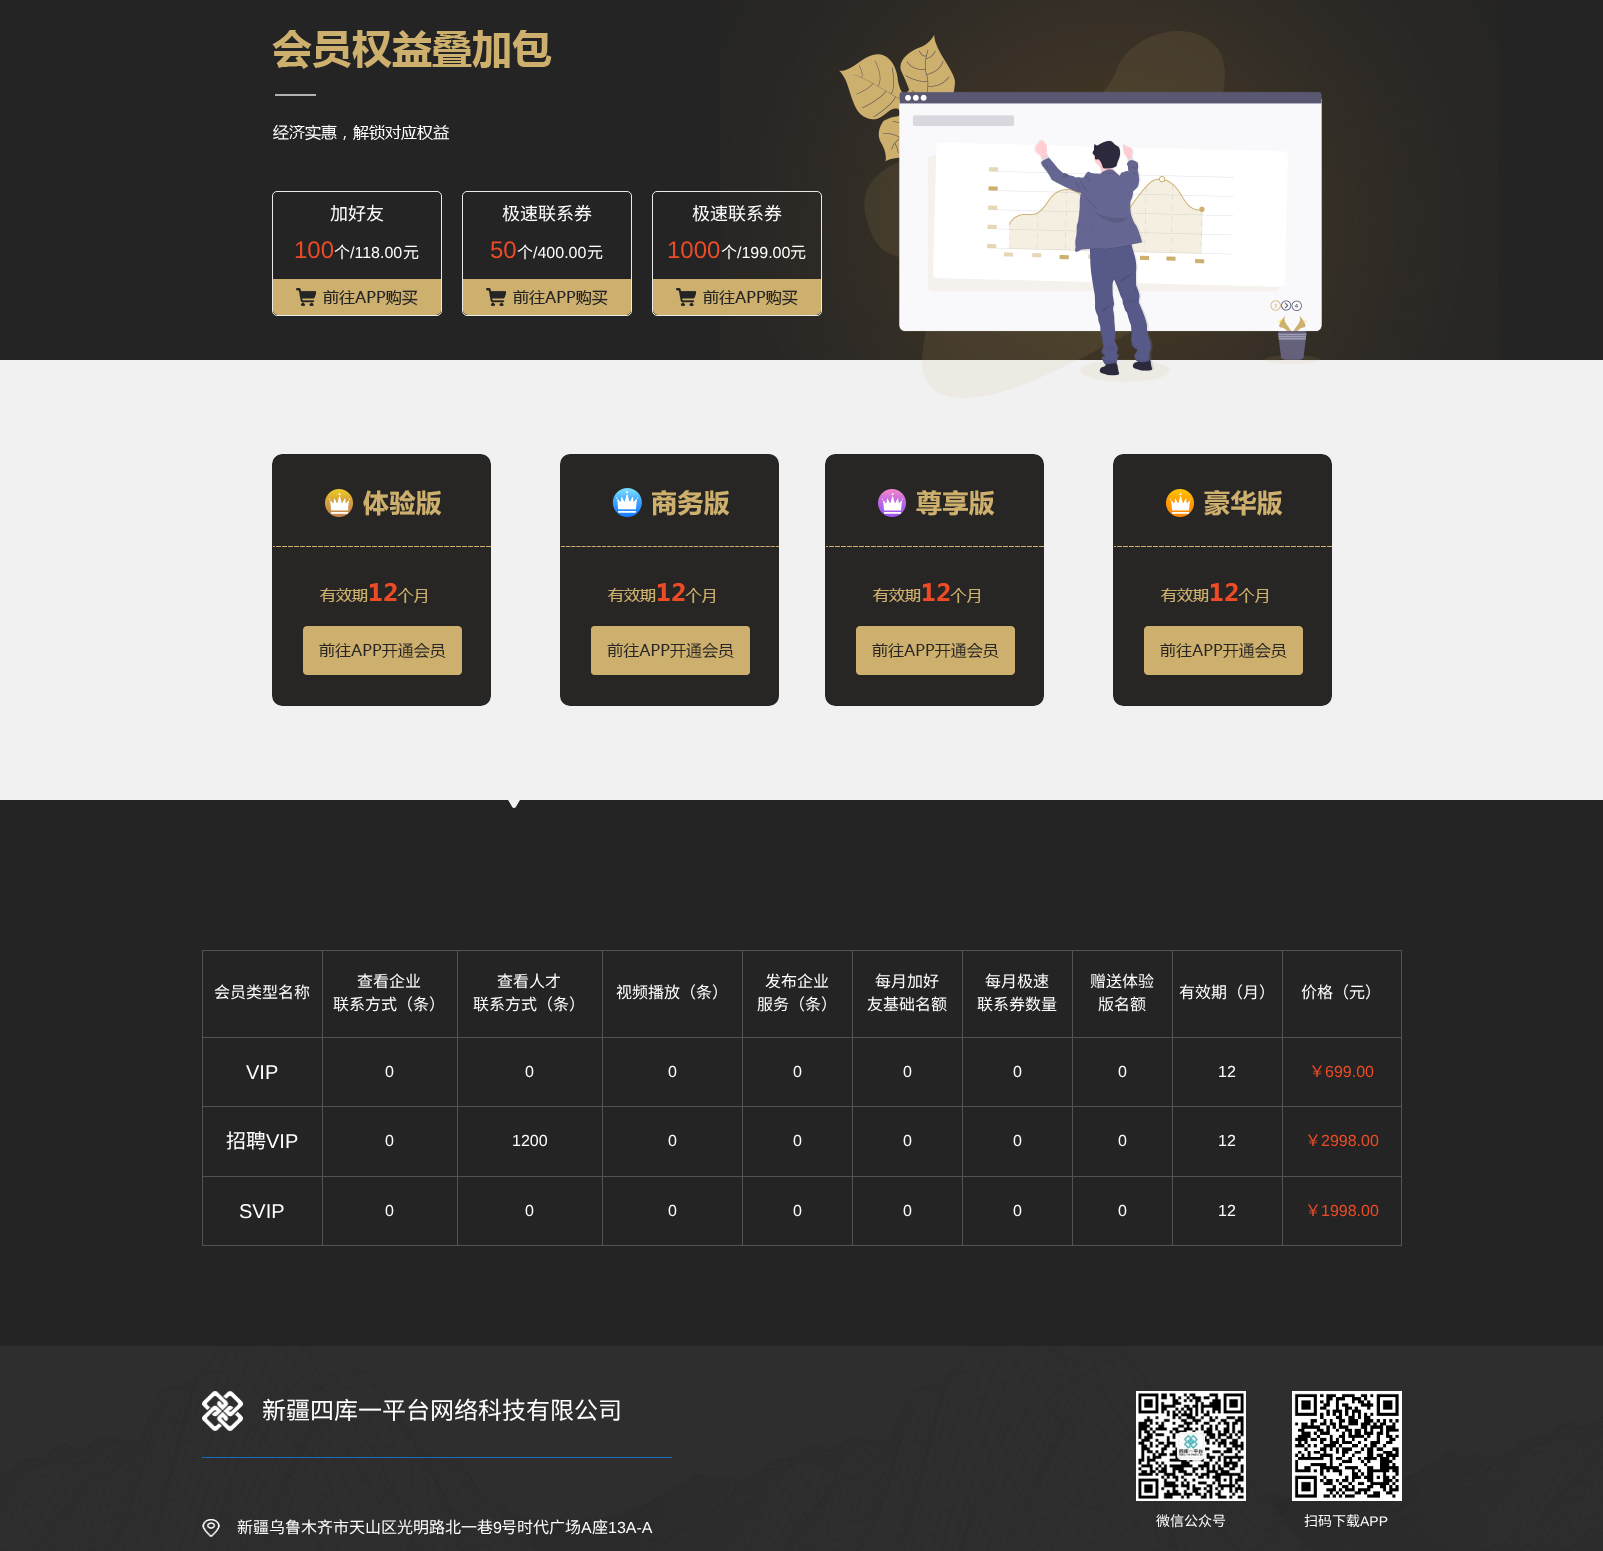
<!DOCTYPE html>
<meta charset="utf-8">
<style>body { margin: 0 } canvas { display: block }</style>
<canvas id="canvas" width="1603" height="1551"></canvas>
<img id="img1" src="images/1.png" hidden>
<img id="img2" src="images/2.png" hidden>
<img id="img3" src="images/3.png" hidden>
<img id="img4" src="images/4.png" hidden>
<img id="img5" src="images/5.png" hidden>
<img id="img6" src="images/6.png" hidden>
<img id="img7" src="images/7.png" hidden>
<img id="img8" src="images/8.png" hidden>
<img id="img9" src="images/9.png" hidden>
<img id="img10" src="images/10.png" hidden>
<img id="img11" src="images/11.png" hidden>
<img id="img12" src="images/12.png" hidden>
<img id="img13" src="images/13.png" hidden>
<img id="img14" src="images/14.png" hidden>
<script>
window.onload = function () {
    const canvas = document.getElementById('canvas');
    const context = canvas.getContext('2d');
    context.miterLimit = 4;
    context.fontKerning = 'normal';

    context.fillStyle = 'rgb(36, 36, 36)';
    context.fillRect(0, 0, 1603, 1551);
    context.drawImage(document.getElementById('img1'), 720, 0, 779, 360);
    context.drawImage(document.getElementById('img2'), 272, 30, 280, 111);
    context.beginPath();
    context.roundRect(272.5, 191.5, 169, 124, 4.5);
    context.strokeStyle = 'rgb(234, 234, 234)';
    context.stroke();
    context.fillStyle = 'rgb(205, 175, 110)';
    context.beginPath();
    context.roundRect(273, 279, 168, 36, [0, 0, 5, 5]);
    context.fill();
    context.drawImage(document.getElementById('img3'), 296, 288, 122, 18);
    context.beginPath();
    context.roundRect(462.5, 191.5, 169, 124, 4.5);
    context.stroke();
    context.beginPath();
    context.roundRect(463, 279, 168, 36, [0, 0, 5, 5]);
    context.fill();
    context.drawImage(document.getElementById('img3'), 486, 288, 122, 18);
    context.beginPath();
    context.roundRect(652.5, 191.5, 169, 124, 4.5);
    context.stroke();
    context.beginPath();
    context.roundRect(653, 279, 168, 36, [0, 0, 5, 5]);
    context.fill();
    context.drawImage(document.getElementById('img3'), 676, 288, 122, 18);
    context.fillStyle = 'rgb(241, 241, 241)';
    context.fillRect(0, 360, 1603, 440);
    context.drawImage(document.getElementById('img4'), 839, 31, 483, 367);
    context.drawImage(document.getElementById('img5'), 272, 454, 219, 252);
    context.drawImage(document.getElementById('img6'), 560, 454, 219, 252);
    context.drawImage(document.getElementById('img7'), 825, 454, 219, 252);
    context.drawImage(document.getElementById('img8'), 1113, 454, 219, 252);
    context.drawImage(document.getElementById('img9'), 508, 800, 12, 8);
    context.fillStyle = 'rgb(83, 83, 83)';
    context.fillRect(202, 950, 1200, 1);
    context.fillRect(1401, 950, 1, 296);
    context.fillRect(202, 1245, 1200, 1);
    context.fillRect(202, 950, 1, 296);
    context.fillRect(1282, 1037, 120, 1);
    context.fillRect(1282, 1106, 120, 1);
    context.fillRect(1282, 1176, 120, 1);
    context.fillRect(1282, 1176, 1, 70);
    context.fillRect(1172, 1176, 111, 1);
    context.fillRect(1282, 1106, 1, 71);
    context.fillRect(1172, 1106, 111, 1);
    context.fillRect(1282, 1037, 1, 70);
    context.fillRect(1172, 1037, 111, 1);
    context.fillRect(1172, 1176, 1, 70);
    context.fillRect(1072, 1176, 101, 1);
    context.fillRect(1172, 1106, 1, 71);
    context.fillRect(1072, 1106, 101, 1);
    context.fillRect(1172, 1037, 1, 70);
    context.fillRect(1072, 1037, 101, 1);
    context.fillRect(1072, 1176, 1, 70);
    context.fillRect(962, 1176, 111, 1);
    context.fillRect(1072, 1106, 1, 71);
    context.fillRect(962, 1106, 111, 1);
    context.fillRect(1072, 1037, 1, 70);
    context.fillRect(962, 1037, 111, 1);
    context.fillRect(962, 1176, 1, 70);
    context.fillRect(852, 1176, 111, 1);
    context.fillRect(962, 1106, 1, 71);
    context.fillRect(852, 1106, 111, 1);
    context.fillRect(962, 1037, 1, 70);
    context.fillRect(852, 1037, 111, 1);
    context.fillRect(852, 1176, 1, 70);
    context.fillRect(742, 1176, 111, 1);
    context.fillRect(852, 1106, 1, 71);
    context.fillRect(742, 1106, 111, 1);
    context.fillRect(852, 1037, 1, 70);
    context.fillRect(742, 1037, 111, 1);
    context.fillRect(742, 1176, 1, 70);
    context.fillRect(602, 1176, 141, 1);
    context.fillRect(742, 1106, 1, 71);
    context.fillRect(602, 1106, 141, 1);
    context.fillRect(742, 1037, 1, 70);
    context.fillRect(602, 1037, 141, 1);
    context.fillRect(602, 1176, 1, 70);
    context.fillRect(457, 1176, 146, 1);
    context.fillRect(602, 1106, 1, 71);
    context.fillRect(457, 1106, 146, 1);
    context.fillRect(602, 1037, 1, 70);
    context.fillRect(457, 1037, 146, 1);
    context.fillRect(457, 1176, 1, 70);
    context.fillRect(322, 1176, 136, 1);
    context.fillRect(457, 1106, 1, 71);
    context.fillRect(322, 1106, 136, 1);
    context.fillRect(457, 1037, 1, 70);
    context.fillRect(322, 1037, 136, 1);
    context.fillRect(322, 1176, 1, 70);
    context.fillRect(202, 1176, 121, 1);
    context.fillRect(322, 1106, 1, 71);
    context.fillRect(202, 1106, 121, 1);
    context.fillRect(322, 1037, 1, 70);
    context.fillRect(202, 1037, 121, 1);
    context.fillRect(322, 950, 1, 88);
    context.fillRect(457, 950, 1, 88);
    context.fillRect(602, 950, 1, 88);
    context.fillRect(742, 950, 1, 88);
    context.fillRect(852, 950, 1, 88);
    context.fillRect(962, 950, 1, 88);
    context.fillRect(1072, 950, 1, 88);
    context.fillRect(1172, 950, 1, 88);
    context.fillRect(1282, 950, 1, 88);
    context.drawImage(document.getElementById('img10'), 0, 1346, 1603, 205);
    context.drawImage(document.getElementById('img11'), 202, 1391, 41, 40);
    context.fillStyle = 'rgba(25, 122, 230, 0.8)';
    context.fillRect(202, 1457, 470, 1);
    context.drawImage(document.getElementById('img12'), 202, 1519, 18, 18);
    context.drawImage(document.getElementById('img13'), 1136, 1391, 110, 110);
    context.drawImage(document.getElementById('img14'), 1292, 1391, 110, 110);
    context.font = '18px Noto Sans CJK SC';
    context.fillStyle = 'rgb(255, 255, 255)';
    context.fillText('加好友', 330, 220);
    context.font = '24px Liberation Sans';
    context.fillStyle = 'rgb(236, 75, 38)';
    context.fillText('100', 294, 258);
    context.font = '16px Noto Sans CJK SC';
    context.fillStyle = 'rgb(255, 255, 255)';
    context.fillText('个', 334, 258);
    context.font = '16px Liberation Sans';
    context.fillText('/118.00', 350, 258);
    context.font = '16px Noto Sans CJK SC';
    context.fillText('元', 403, 258);
    context.font = '18px Noto Sans CJK SC';
    context.fillText('极速联系券', 502, 220);
    context.font = '24px Liberation Sans';
    context.fillStyle = 'rgb(236, 75, 38)';
    context.fillText('50', 490, 258);
    context.font = '16px Noto Sans CJK SC';
    context.fillStyle = 'rgb(255, 255, 255)';
    context.fillText('个', 517, 258);
    context.font = '16px Liberation Sans';
    context.fillText('/400.00', 533, 258);
    context.font = '16px Noto Sans CJK SC';
    context.fillText('元', 587, 258);
    context.font = '18px Noto Sans CJK SC';
    context.fillText('极速联系券', 692, 220);
    context.font = '24px Liberation Sans';
    context.fillStyle = 'rgb(236, 75, 38)';
    context.fillText('1000', 667, 258);
    context.font = '16px Noto Sans CJK SC';
    context.fillStyle = 'rgb(255, 255, 255)';
    context.fillText('个', 721, 258);
    context.font = '16px Liberation Sans';
    context.fillText('/199.00', 737, 258);
    context.font = '16px Noto Sans CJK SC';
    context.fillText('元', 790, 258);
    context.fillText('会员类型名称', 214, 998);
    context.fillText('查看企业', 357, 987);
    context.fillText('联系方式（条）', 333, 1010);
    context.fillText('查看人才', 497, 987);
    context.fillText('联系方式（条）', 473, 1010);
    context.fillText('视频播放（条）', 616, 998);
    context.fillText('发布企业', 765, 987);
    context.fillText('服务（条）', 757, 1010);
    context.fillText('每月加好', 875, 987);
    context.fillText('友基础名额', 867, 1010);
    context.fillText('每月极速', 985, 987);
    context.fillText('联系券数量', 977, 1010);
    context.fillText('赠送体验', 1090, 987);
    context.fillText('版名额', 1098, 1010);
    context.fillText('有效期（月）', 1179, 998);
    context.fillText('价格（元）', 1301, 998);
    context.font = '20px Liberation Sans';
    context.fillText('VIP', 246, 1079);
    context.font = '16px Liberation Sans';
    context.fillText('0', 385, 1077);
    context.fillText('0', 525, 1077);
    context.fillText('0', 668, 1077);
    context.fillText('0', 793, 1077);
    context.fillText('0', 903, 1077);
    context.fillText('0', 1013, 1077);
    context.fillText('0', 1118, 1077);
    context.fillText('12', 1218, 1077);
    context.font = '16px Noto Sans CJK SC';
    context.fillStyle = 'rgb(236, 75, 38)';
    context.fillText('￥', 1309, 1077);
    context.font = '16px Liberation Sans';
    context.fillText('699.00', 1325, 1077);
    context.font = '20px Noto Sans CJK SC';
    context.fillStyle = 'rgb(255, 255, 255)';
    context.fillText('招聘', 226, 1148);
    context.font = '20px Liberation Sans';
    context.fillText('VIP', 266, 1148);
    context.font = '16px Liberation Sans';
    context.fillText('0', 385, 1146);
    context.fillText('1200', 512, 1146);
    context.fillText('0', 668, 1146);
    context.fillText('0', 793, 1146);
    context.fillText('0', 903, 1146);
    context.fillText('0', 1013, 1146);
    context.fillText('0', 1118, 1146);
    context.fillText('12', 1218, 1146);
    context.font = '16px Noto Sans CJK SC';
    context.fillStyle = 'rgb(236, 75, 38)';
    context.fillText('￥', 1305, 1146);
    context.font = '16px Liberation Sans';
    context.fillText('2998.00', 1321, 1146);
    context.font = '20px Liberation Sans';
    context.fillStyle = 'rgb(255, 255, 255)';
    context.fillText('SVIP', 239, 1218);
    context.font = '16px Liberation Sans';
    context.fillText('0', 385, 1216);
    context.fillText('0', 525, 1216);
    context.fillText('0', 668, 1216);
    context.fillText('0', 793, 1216);
    context.fillText('0', 903, 1216);
    context.fillText('0', 1013, 1216);
    context.fillText('0', 1118, 1216);
    context.fillText('12', 1218, 1216);
    context.font = '16px Noto Sans CJK SC';
    context.fillStyle = 'rgb(236, 75, 38)';
    context.fillText('￥', 1305, 1216);
    context.font = '16px Liberation Sans';
    context.fillText('1998.00', 1321, 1216);
    context.font = '24px Noto Sans CJK SC';
    context.fillStyle = 'rgb(255, 255, 255)';
    context.fillText('新疆四库一平台网络科技有限公司', 262, 1419);
    context.font = '16px Noto Sans CJK SC';
    context.fillText('新疆乌鲁木齐市天山区光明路北一巷', 237, 1533);
    context.font = '16px Liberation Sans';
    context.fillText('9', 493, 1533);
    context.font = '16px Noto Sans CJK SC';
    context.fillText('号时代广场', 501, 1533);
    context.font = '16px Liberation Sans';
    context.fillText('A', 581, 1533);
    context.font = '16px Noto Sans CJK SC';
    context.fillText('座', 592, 1533);
    context.font = '16px Liberation Sans';
    context.fillText('13A-A', 608, 1533);
    context.font = '14px Noto Sans CJK SC';
    context.fillText('微信公众号', 1156, 1526);
    context.fillText('扫码下载', 1304, 1526);
    context.font = '14px Liberation Sans';
    context.fillText('APP', 1360, 1526);
};
</script>
